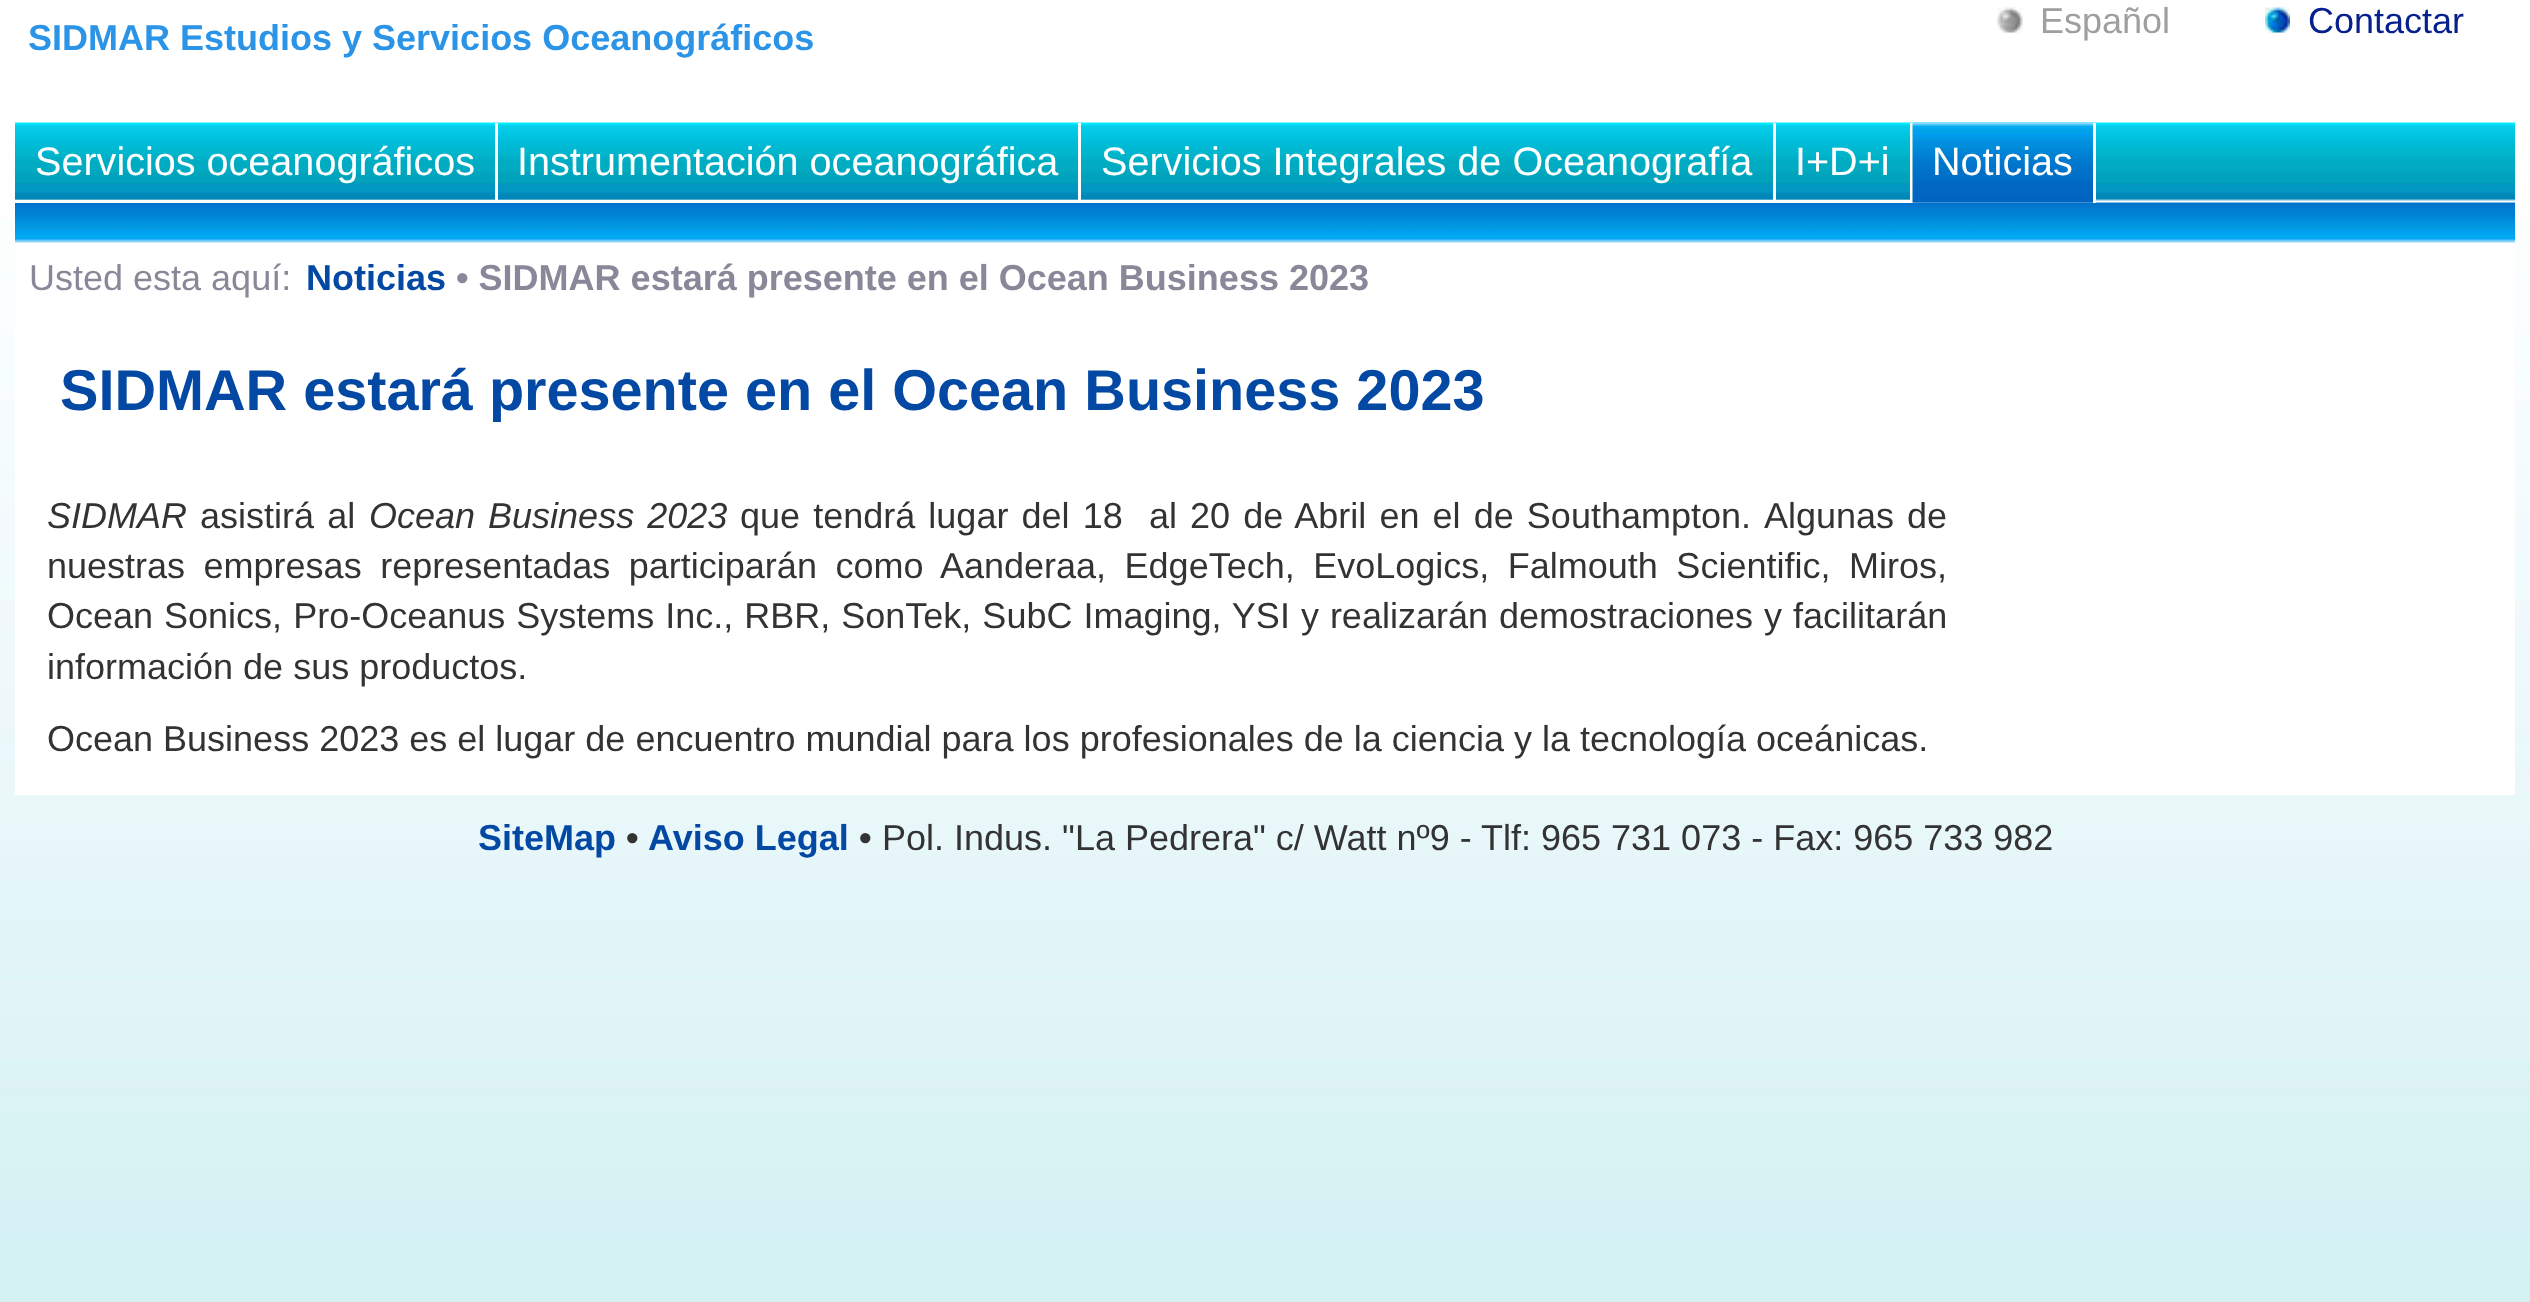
<!DOCTYPE html>
<meta charset="utf-8">
<style>body { margin: 0 } canvas { display: block }</style>
<canvas id="canvas" width="2530" height="1302"></canvas>
<img id="img1" src="images/1.png" hidden>
<img id="img2" src="images/2.png" hidden>
<img id="img3" src="images/3.png" hidden>
<img id="img4" src="images/4.png" hidden>
<img id="img5" src="images/6.png" hidden>
<img id="img6" src="images/5.png" hidden>
<script>
window.onload = function () {
    const canvas = document.getElementById('canvas');
    const context = canvas.getContext('2d');
    context.miterLimit = 4;
    context.fontKerning = 'normal';

    context.fillStyle = 'rgb(255, 255, 255)';
    context.fillRect(0, 0, 2530, 1302);
    context.drawImage(document.getElementById('img1'), 0, 0, 2530, 1302);
    context.fillRect(15, 220, 2500, 575);
    context.drawImage(document.getElementById('img2'), 1997, 7, 26, 26);
    context.drawImage(document.getElementById('img3'), 2265, 7, 25, 26);
    context.drawImage(document.getElementById('img4'), 15, 122, 2500, 79);
    context.drawImage(document.getElementById('img5'), 15, 202, 2500, 41);
    context.fillRect(495, 123, 3, 80);
    context.fillRect(15, 200, 483, 3);
    context.fillRect(1078, 123, 3, 80);
    context.fillRect(498, 200, 582, 3);
    context.fillRect(1773, 123, 3, 80);
    context.fillRect(1080, 200, 695, 3);
    context.fillRect(1910, 123, 3, 80);
    context.fillRect(1775, 200, 138, 3);
    context.drawImage(document.getElementById('img6'), 1912, 122, 183, 81);
    context.fillRect(2093, 123, 3, 80);
    context.font = 'bold 36px Liberation Sans';
    context.fillStyle = 'rgb(43, 148, 231)';
    context.fillText('SIDMAR Estudios y Servicios Oceanográficos', 28, 50);
    context.font = '36px Liberation Sans';
    context.fillStyle = 'rgb(159, 159, 159)';
    context.fillText('Español', 2040, 33);
    context.fillStyle = 'rgb(6, 32, 142)';
    context.fillText('Contactar', 2308, 33);
    context.font = '39.6px Liberation Sans';
    context.fillStyle = 'rgb(255, 255, 255)';
    context.fillText('Servicios oceanográficos', 35, 175);
    context.fillText('Instrumentación oceanográfica', 517, 175);
    context.fillText('Servicios Integrales de Oceanografía', 1101, 175);
    context.fillText('I+D+i', 1795, 175);
    context.fillText('Noticias', 1932, 175);
    context.font = '36px Liberation Sans';
    context.fillStyle = 'rgb(136, 136, 153)';
    context.fillText('Usted esta aquí:', 29, 290);
    context.font = 'bold 36px Liberation Sans';
    context.fillStyle = 'rgb(3, 72, 163)';
    context.fillText('Noticias', 306, 290);
    context.fillStyle = 'rgb(136, 136, 153)';
    context.fillText('• SIDMAR estará presente en el Ocean Business 2023', 456, 290);
    context.font = 'bold 57.6px Liberation Sans';
    context.fillStyle = 'rgb(3, 72, 163)';
    context.fillText('SIDMAR estará presente en el Ocean Business 2023', 60, 410);
    context.font = 'italic 36px Liberation Sans';
    context.fillStyle = 'rgb(51, 51, 51)';
    context.fillText('SIDMAR', 47, 528);
    context.wordSpacing = '3.1px';
    context.font = '36px Liberation Sans';
    context.fillText('asistirá al', 200, 528);
    context.wordSpacing = '3px';
    context.font = 'italic 36px Liberation Sans';
    context.fillText('Ocean Business 2023', 369, 528);
    context.wordSpacing = '3.1px';
    context.font = '36px Liberation Sans';
    context.fillText('que tendrá lugar del 18  al 20 de Abril en el de Southampton.', 740, 528);
    context.wordSpacing = '3px';
    context.fillText('Algunas de', 1764, 528);
    context.wordSpacing = '8.5px';
    context.fillText('nuestras empresas representadas participarán como Aanderaa, EdgeTech, EvoLogics, Falmouth Scientific, Miros,', 47, 578);
    context.wordSpacing = '1px';
    context.fillText('Ocean Sonics, Pro-Oceanus Systems Inc., RBR, SonTek, SubC Imaging, YSI y realizarán demostraciones y facilitarán', 47, 628);
    context.wordSpacing = '0px';
    context.fillText('información de sus productos.', 47, 679);
    context.fillText('Ocean Business 2023 es el lugar de encuentro mundial para los profesionales de la ciencia y la tecnología oceánicas.', 47, 751);
    context.font = 'bold 36px Liberation Sans';
    context.fillStyle = 'rgb(3, 72, 163)';
    context.fillText('SiteMap', 478, 850);
    context.fillStyle = 'rgb(51, 51, 51)';
    context.fillText('•', 626, 850);
    context.fillStyle = 'rgb(3, 72, 163)';
    context.fillText('Aviso Legal', 648, 850);
    context.fillStyle = 'rgb(51, 51, 51)';
    context.fillText('•', 859, 850);
    context.font = '36px Liberation Sans';
    context.fillText('Pol. Indus. "La Pedrera" c/ Watt nº9 - Tlf: 965 731 073 - Fax: 965 733 982', 882, 850);
};
</script>
